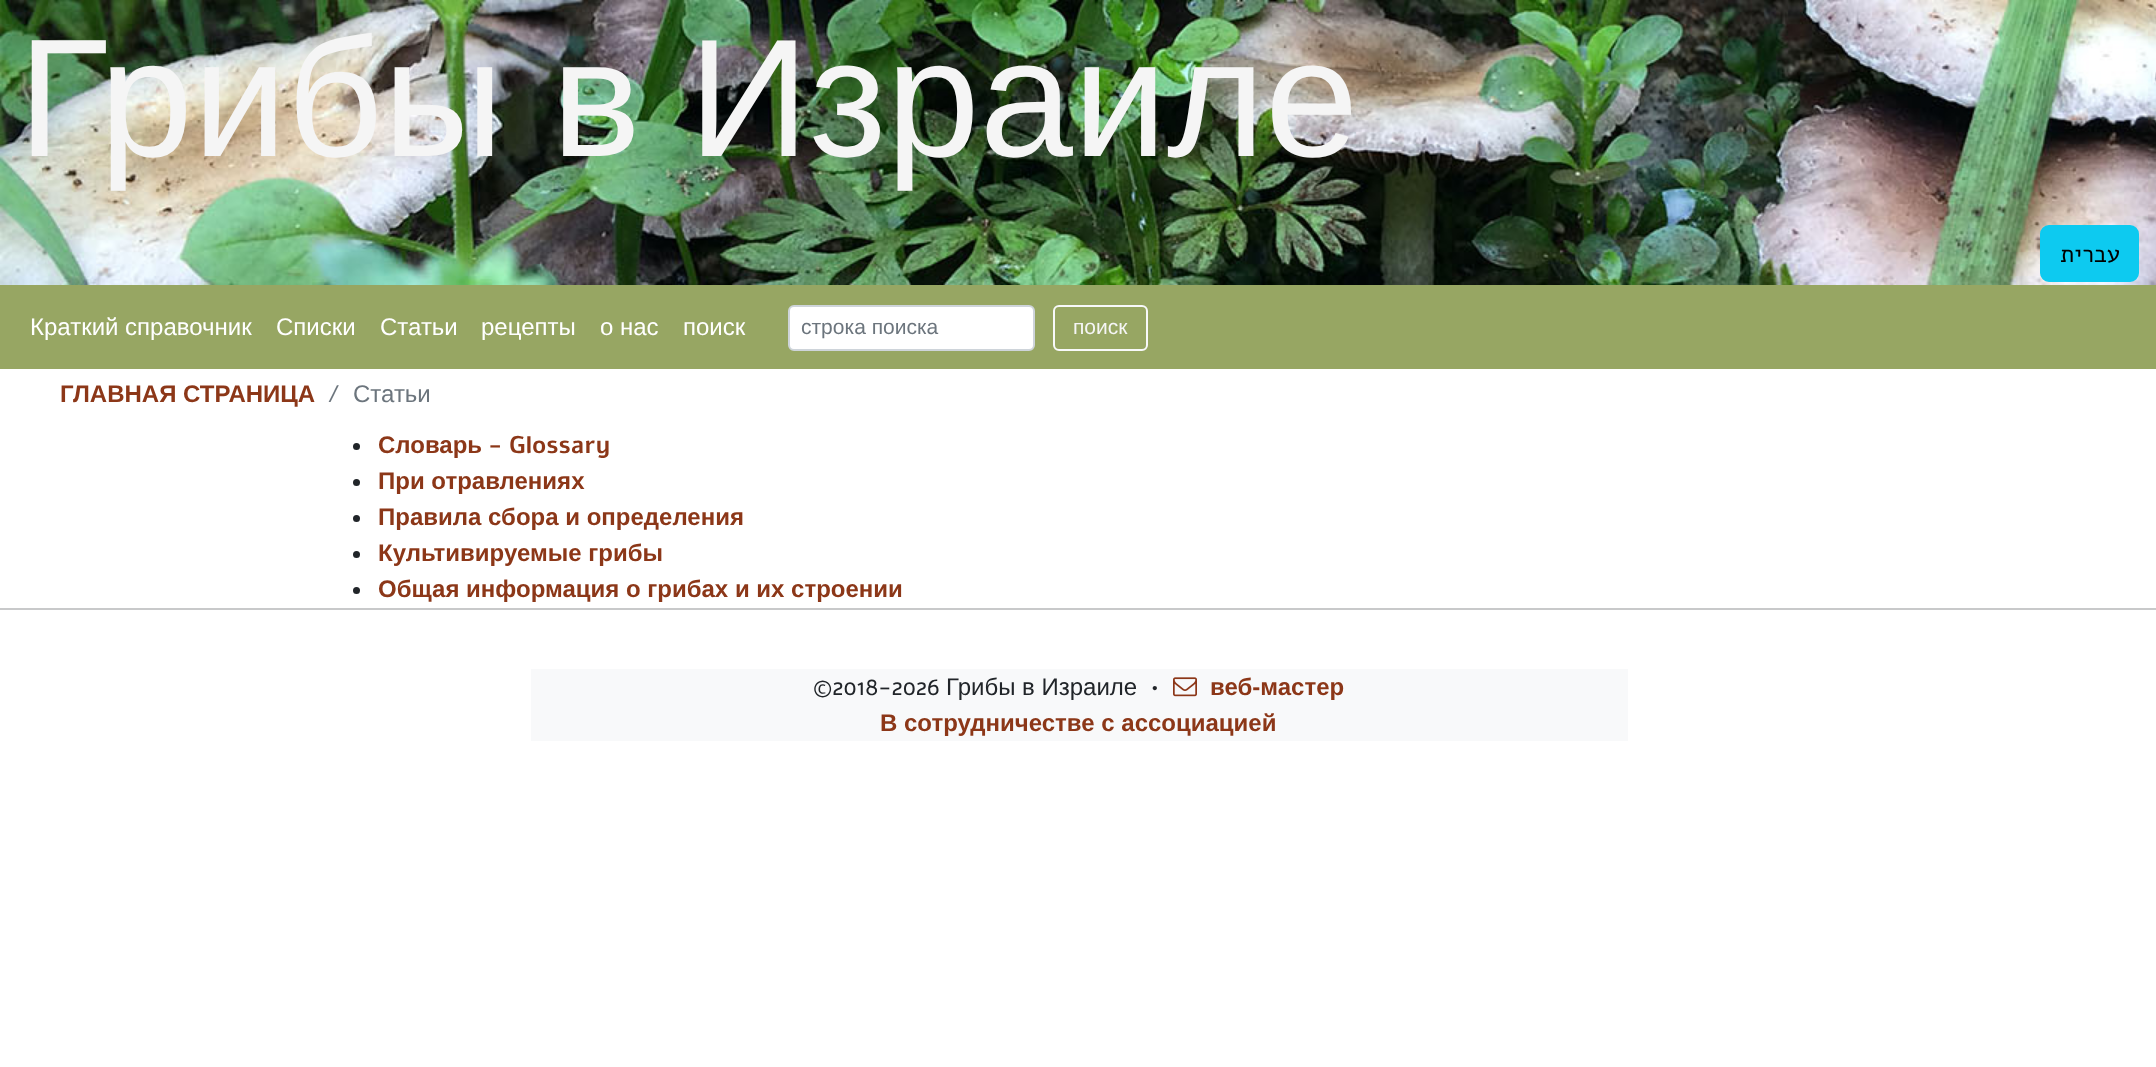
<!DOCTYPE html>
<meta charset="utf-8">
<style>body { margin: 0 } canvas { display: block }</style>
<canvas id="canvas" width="2156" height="1067"></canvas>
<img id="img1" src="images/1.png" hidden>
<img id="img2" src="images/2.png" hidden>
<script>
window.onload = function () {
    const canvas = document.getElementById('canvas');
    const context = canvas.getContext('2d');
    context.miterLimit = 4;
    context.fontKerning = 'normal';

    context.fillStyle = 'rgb(255, 255, 255)';
    context.fillRect(0, 0, 2156, 1067);
    context.drawImage(document.getElementById('img1'), 0, 0, 2156, 285);
    context.fillStyle = 'rgb(13, 202, 240)';
    context.beginPath();
    context.roundRect(2041, 226, 97, 55, 8);
    context.fill();
    context.strokeStyle = 'rgb(13, 202, 240)';
    context.lineWidth = 2;
    context.stroke();
    context.fillStyle = 'rgb(151, 166, 99)';
    context.fillRect(0, 285, 2156, 84);
    context.fillStyle = 'rgb(255, 255, 255)';
    context.beginPath();
    context.roundRect(789, 306, 245, 44, 5);
    context.fill();
    context.strokeStyle = 'rgb(206, 212, 218)';
    context.stroke();
    context.beginPath();
    context.roundRect(1054, 306, 93, 44, 5);
    context.strokeStyle = 'rgb(248, 249, 250)';
    context.stroke();
    context.fillStyle = 'rgb(33, 37, 41)';
    context.beginPath();
    context.arc(356.5, 446.5, 3.5, 0, 2 * Math.PI);
    context.fill();
    context.beginPath();
    context.arc(356.5, 482.5, 3.5, 0, 2 * Math.PI);
    context.fill();
    context.beginPath();
    context.arc(356.5, 518.5, 3.5, 0, 2 * Math.PI);
    context.fill();
    context.beginPath();
    context.arc(356.5, 554.5, 3.5, 0, 2 * Math.PI);
    context.fill();
    context.beginPath();
    context.arc(356.5, 590.5, 3.5, 0, 2 * Math.PI);
    context.fill();
    context.fillStyle = 'rgb(200, 201, 202)';
    context.fillRect(0, 608, 2156, 2);
    context.fillStyle = 'rgb(248, 249, 250)';
    context.fillRect(531, 669, 1097, 72);
    context.drawImage(document.getElementById('img2'), 1173, 677, 24, 20);
    context.wordSpacing = '1px';
    context.font = '168px Liberation Sans';
    context.fillStyle = 'rgb(245, 245, 245)';
    context.fillText('Грибы в Израиле', 18, 156);
    context.wordSpacing = '0px';
    context.direction = 'rtl';
    context.font = '24px Alef';
    context.fillStyle = 'rgb(0, 0, 0)';
    context.fillText('עברית', 2120, 262);
    context.direction = 'ltr';
    context.font = '24px Liberation Sans';
    context.fillStyle = 'rgb(255, 255, 255)';
    context.fillText('Краткий справочник', 30, 335);
    context.fillText('Списки', 276, 335);
    context.fillText('Статьи', 380, 335);
    context.fillText('рецепты', 481, 335);
    context.fillText('о нас', 600, 335);
    context.fillText('поиск', 683, 335);
    context.font = '21px Liberation Sans';
    context.fillStyle = 'rgb(108, 117, 125)';
    context.fillText('строка поиска', 801, 334);
    context.fillStyle = 'rgb(245, 245, 245)';
    context.fillText('поиск', 1073, 334);
    context.font = 'bold 24px Liberation Sans';
    context.fillStyle = 'rgb(140, 55, 24)';
    context.fillText('ГЛАВНАЯ СТРАНИЦА', 60, 402);
    context.font = '24px Alef';
    context.fillStyle = 'rgb(108, 117, 125)';
    context.fillText('/', 327, 402);
    context.font = '24px Liberation Sans';
    context.fillText('Статьи', 353, 402);
    context.font = 'bold 24px Liberation Sans';
    context.fillStyle = 'rgb(140, 55, 24)';
    context.fillText('Словарь', 378, 453);
    context.font = 'bold 24px Alef';
    context.fillText('- Glossary', 488, 453);
    context.font = 'bold 24px Liberation Sans';
    context.fillText('При отравлениях', 378, 489);
    context.fillText('Правила сбора и определения', 378, 525);
    context.fillText('Культивируемые грибы', 378, 561);
    context.fillText('Общая информация о грибах и их строении', 378, 597);
    context.font = '24px Alef';
    context.fillStyle = 'rgb(33, 37, 41)';
    context.fillText('©2018-2026', 813, 695);
    context.font = '24px Liberation Sans';
    context.fillText('Грибы в Израиле', 946, 695);
    context.font = '24px Alef';
    context.fillText('•', 1151, 695);
    context.font = 'bold 24px Liberation Sans';
    context.fillStyle = 'rgb(140, 55, 24)';
    context.fillText('веб-мастер', 1210, 695);
    context.fillText('В сотрудничестве с ассоциацией', 880, 731);
};
</script>
